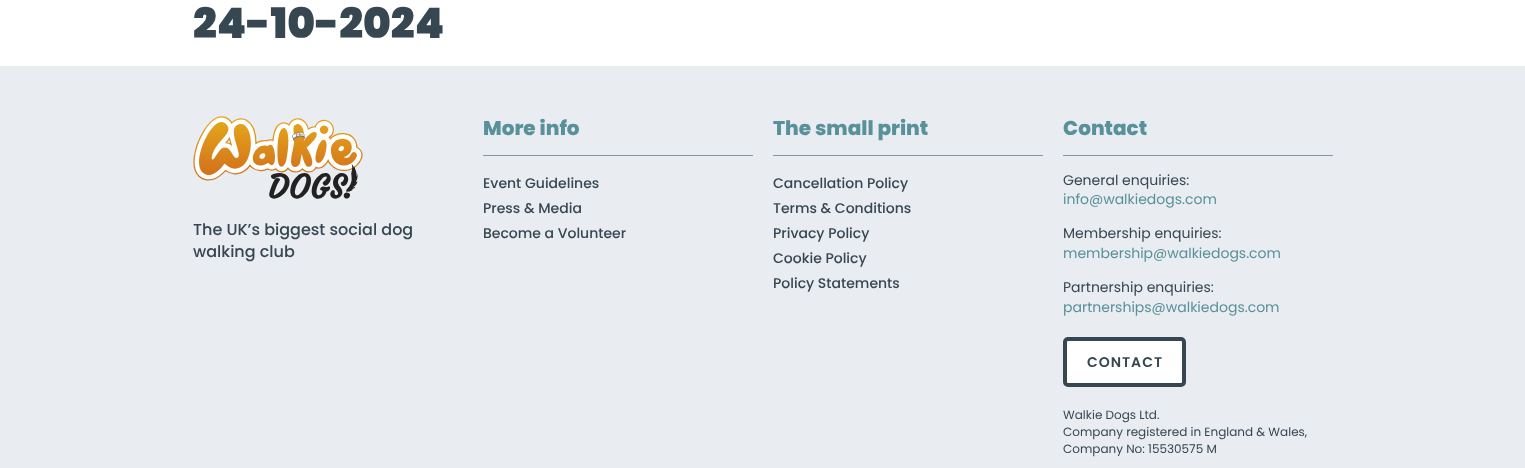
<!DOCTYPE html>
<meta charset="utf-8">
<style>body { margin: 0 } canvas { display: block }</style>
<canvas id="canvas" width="1525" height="468"></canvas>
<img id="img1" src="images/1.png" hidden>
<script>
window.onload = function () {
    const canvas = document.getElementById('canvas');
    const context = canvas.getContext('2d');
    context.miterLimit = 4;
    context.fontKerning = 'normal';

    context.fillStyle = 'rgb(255, 255, 255)';
    context.fillRect(0, 0, 1525, 468);
    context.fillStyle = 'rgb(233, 236, 241)';
    context.fillRect(0, 66, 1525, 402);
    context.drawImage(document.getElementById('img1'), 193, 116, 170, 83);
    context.fillStyle = 'rgb(130, 151, 163)';
    context.fillRect(483, 155, 270, 1);
    context.fillRect(773, 155, 270, 1);
    context.fillRect(1063, 155, 270, 1);
    context.fillStyle = 'rgb(255, 255, 255)';
    context.beginPath();
    context.roundRect(1065, 339, 119, 46, 3);
    context.fill();
    context.strokeStyle = 'rgb(54, 71, 81)';
    context.lineWidth = 4;
    context.stroke();
    context.font = '900 42px Poppins';
    context.fillStyle = 'rgb(54, 71, 81)';
    context.fillText('24-10-2024', 193, 38);
    context.font = '500 16px Poppins';
    context.fillText('The UK’s biggest social dog', 193, 235);
    context.fillText('walking club', 193, 257);
    context.font = '800 20px Poppins';
    context.fillStyle = 'rgb(88, 145, 153)';
    context.fillText('More info', 483, 135);
    context.font = '500 14px Poppins';
    context.fillStyle = 'rgb(54, 71, 81)';
    context.fillText('Event Guidelines', 483, 188);
    context.fillText('Press & Media', 483, 213);
    context.fillText('Become a Volunteer', 483, 238);
    context.font = '800 20px Poppins';
    context.fillStyle = 'rgb(88, 145, 153)';
    context.fillText('The small print', 773, 135);
    context.font = '500 14px Poppins';
    context.fillStyle = 'rgb(54, 71, 81)';
    context.fillText('Cancellation Policy', 773, 188);
    context.fillText('Terms & Conditions', 773, 213);
    context.fillText('Privacy Policy', 773, 238);
    context.fillText('Cookie Policy', 773, 263);
    context.fillText('Policy Statements', 773, 288);
    context.font = '800 20px Poppins';
    context.fillStyle = 'rgb(88, 145, 153)';
    context.fillText('Contact', 1063, 135);
    context.font = '14px Poppins';
    context.fillStyle = 'rgb(54, 71, 81)';
    context.fillText('General enquiries:', 1063, 185);
    context.fillStyle = 'rgb(88, 145, 153)';
    context.fillText('info@walkiedogs.com', 1063, 204);
    context.fillStyle = 'rgb(54, 71, 81)';
    context.fillText('Membership enquiries:', 1063, 238);
    context.fillStyle = 'rgb(88, 145, 153)';
    context.fillText('membership@walkiedogs.com', 1063, 258);
    context.fillStyle = 'rgb(54, 71, 81)';
    context.fillText('Partnership enquiries:', 1063, 292);
    context.fillStyle = 'rgb(88, 145, 153)';
    context.fillText('partnerships@walkiedogs.com', 1063, 312);
    context.letterSpacing = '1px';
    context.font = '600 14px Poppins';
    context.fillStyle = 'rgb(54, 71, 81)';
    context.fillText('CONTACT', 1087, 367);
    context.letterSpacing = '0px';
    context.font = '12px Poppins';
    context.fillText('Walkie Dogs Ltd.', 1063, 419);
    context.fillText('Company registered in England & Wales,', 1063, 436);
    context.fillText('Company No: 15530575 M', 1063, 453);
};
</script>
